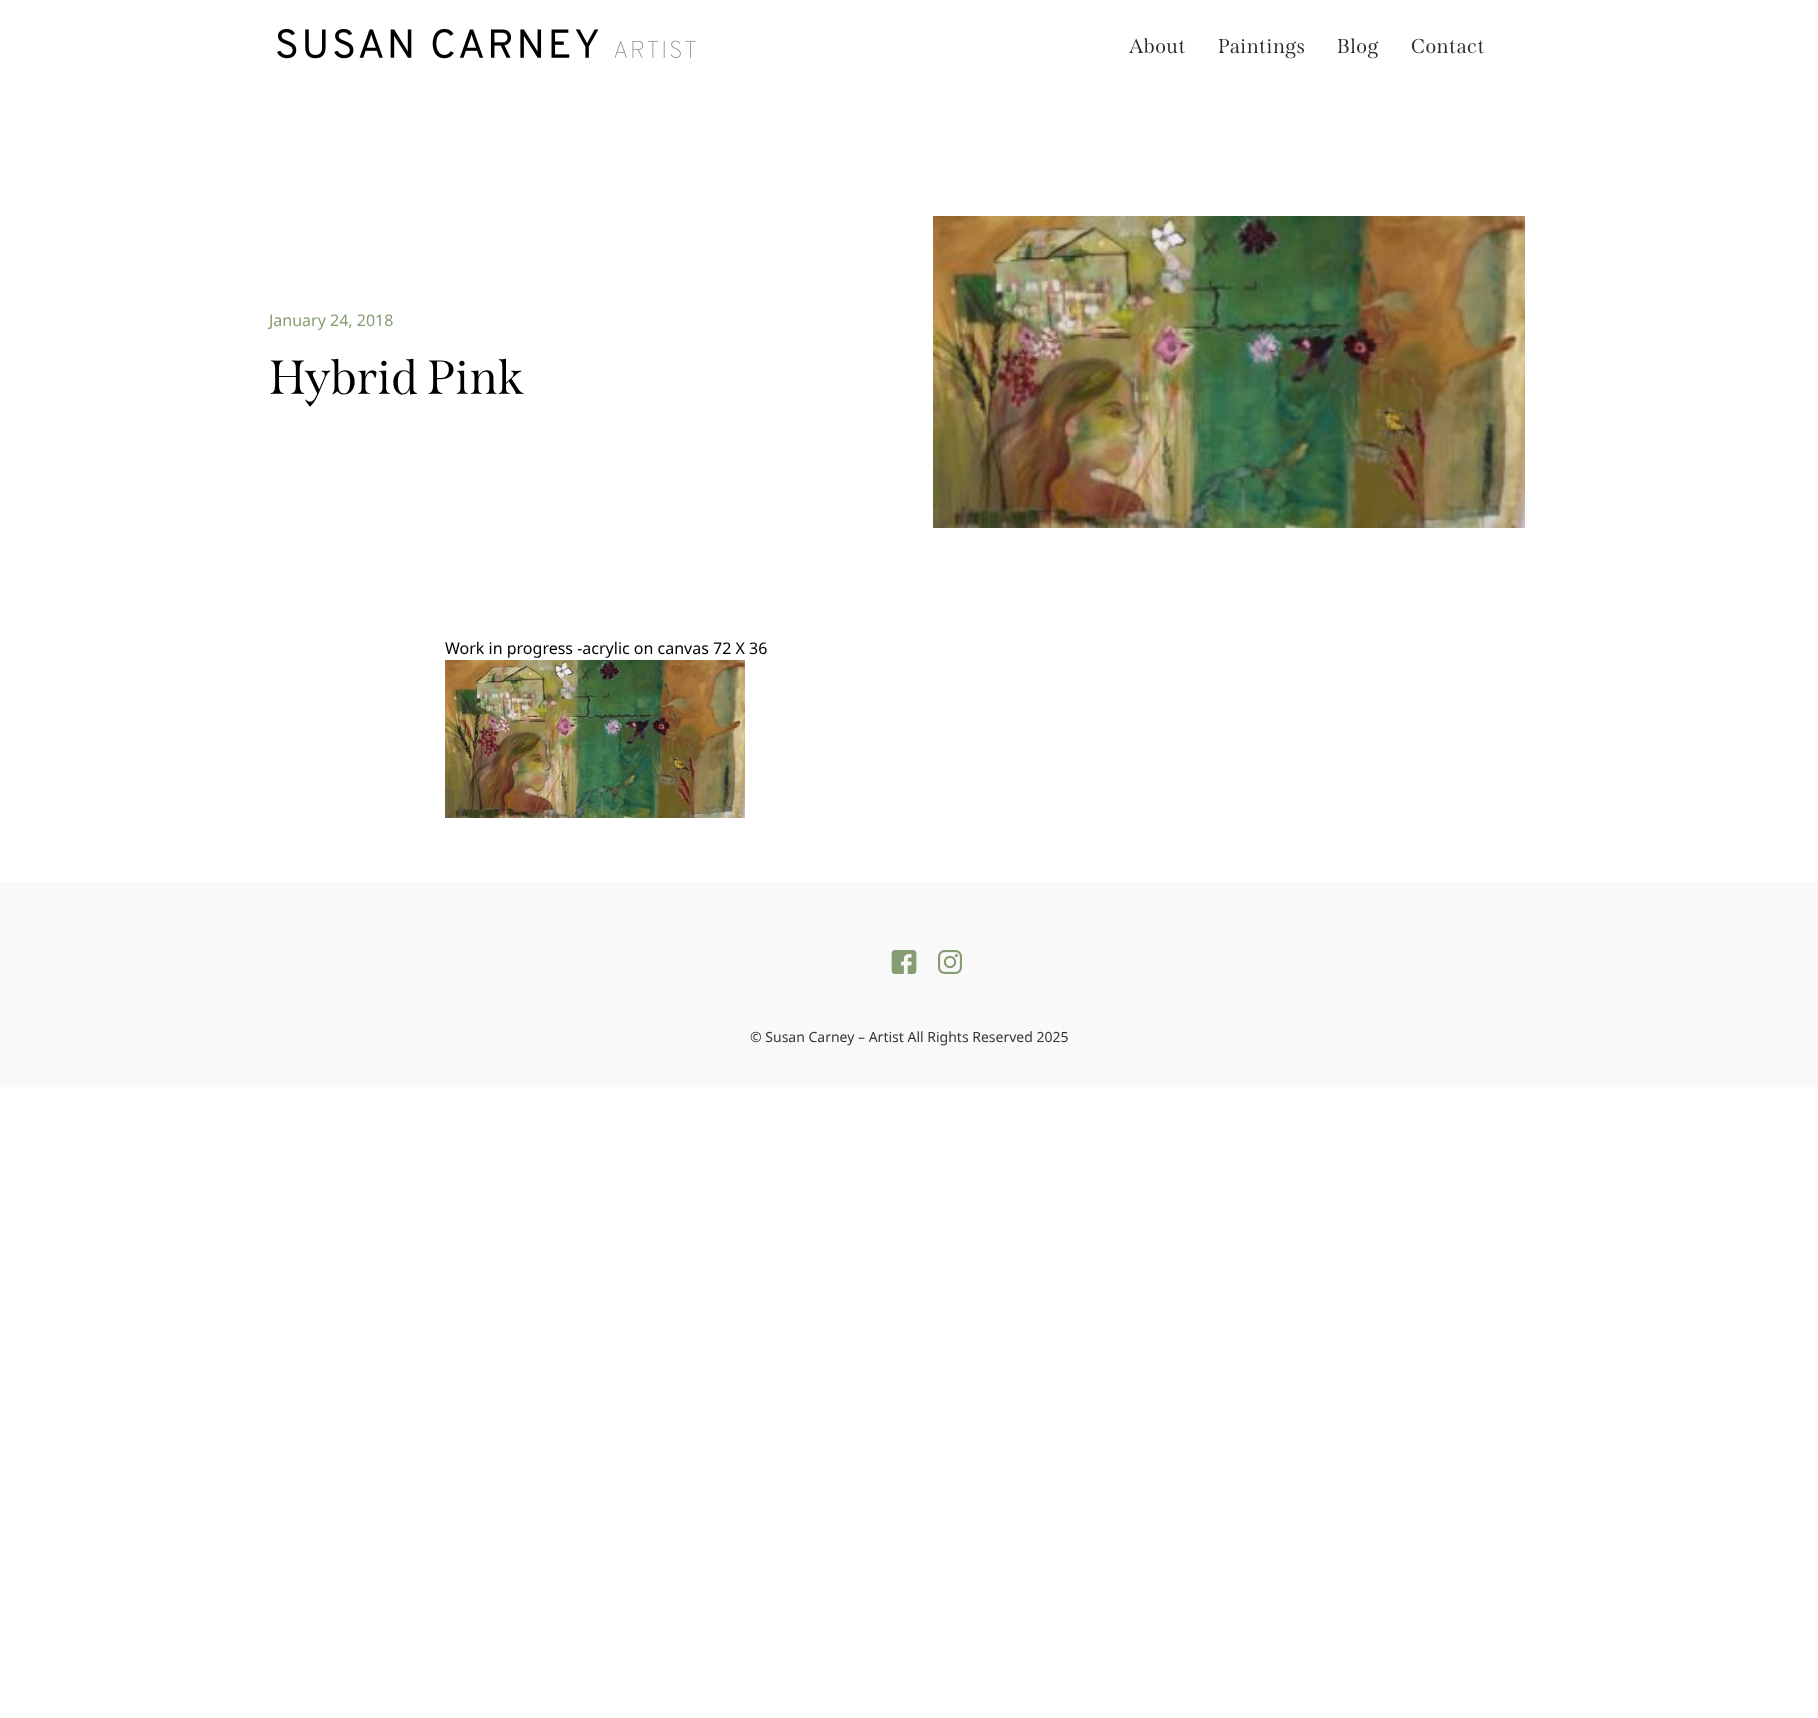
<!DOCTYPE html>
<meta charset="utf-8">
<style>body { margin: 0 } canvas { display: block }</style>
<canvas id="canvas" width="1818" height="1718"></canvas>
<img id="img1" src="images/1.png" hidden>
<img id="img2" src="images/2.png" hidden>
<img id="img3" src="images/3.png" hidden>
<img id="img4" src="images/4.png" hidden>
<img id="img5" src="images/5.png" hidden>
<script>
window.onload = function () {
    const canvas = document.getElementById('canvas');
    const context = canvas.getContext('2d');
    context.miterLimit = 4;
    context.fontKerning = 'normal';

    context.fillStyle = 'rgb(255, 255, 255)';
    context.fillRect(0, 0, 1818, 1718);
    context.drawImage(document.getElementById('img1'), 277, 29, 419, 30);
    context.drawImage(document.getElementById('img2'), 933, 216, 592, 312);
    context.drawImage(document.getElementById('img3'), 445, 660, 300, 158);
    context.fillStyle = 'rgb(249, 249, 249)';
    context.fillRect(0, 882, 1818, 205);
    context.drawImage(document.getElementById('img4'), 891, 950, 26, 24);
    context.drawImage(document.getElementById('img5'), 938, 950, 24, 24);
    context.letterSpacing = '0.5px';
    context.font = '20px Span';
    context.fillStyle = 'rgb(43, 43, 43)';
    context.fillText('About', 1129, 53);
    context.fillText('Paintings', 1218, 53);
    context.fillText('Blog', 1337, 53);
    context.fillText('Contact', 1411, 53);
    context.letterSpacing = '0px';
    context.font = '16px Noto Sans';
    context.fillStyle = 'rgb(134, 156, 115)';
    context.fillText('January 24, 2018', 269, 326);
    context.font = '48px Span';
    context.fillStyle = 'rgb(0, 0, 0)';
    context.fillText('Hybrid Pink', 269, 394);
    context.font = '16px Noto Sans';
    context.fillText('Work in progress -acrylic on canvas 72 X 36', 445, 654);
    context.font = '14px Noto Sans';
    context.fillStyle = 'rgb(54, 54, 54)';
    context.fillText('© Susan Carney – Artist All Rights Reserved 2025', 750, 1042);
};
</script>
